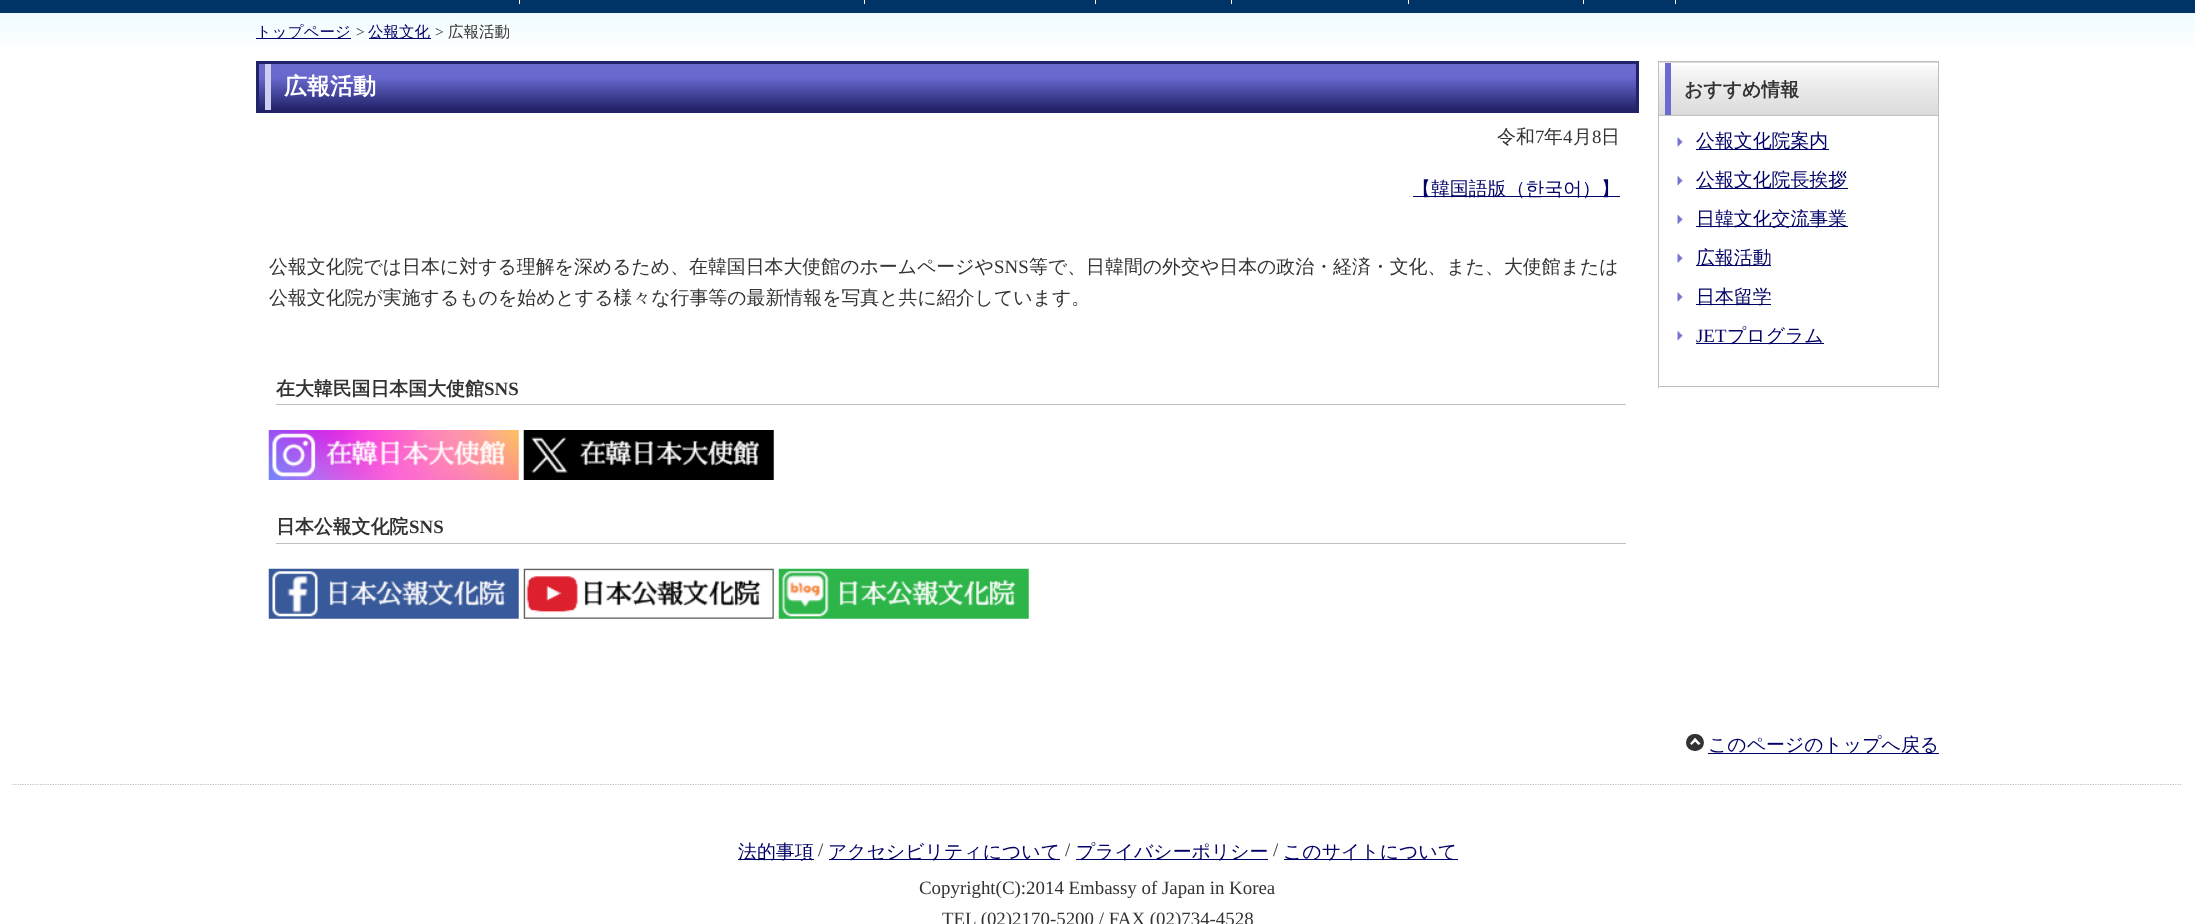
<!DOCTYPE html>
<meta charset="utf-8">
<style>body { margin: 0 } canvas { display: block }</style>
<canvas id="canvas" width="2195" height="924"></canvas>
<img id="img1" src="images/1.png" hidden>
<img id="img2" src="images/2.png" hidden>
<img id="img3" src="images/3.png" hidden>
<img id="img4" src="images/4.png" hidden>
<img id="img5" src="images/5.png" hidden>
<img id="img6" src="images/6.png" hidden>
<img id="img7" src="images/7.png" hidden>
<img id="img8" src="images/8.png" hidden>
<img id="img9" src="images/9.png" hidden>
<img id="img10" src="images/10.png" hidden>
<img id="img11" src="images/11.png" hidden>
<script>
window.onload = function () {
    const canvas = document.getElementById('canvas');
    const context = canvas.getContext('2d');
    context.miterLimit = 4;
    context.fontKerning = 'normal';
    let gradient;

    context.fillStyle = 'rgb(255, 255, 255)';
    context.fillRect(0, 0, 2195, 924);
    context.drawImage(document.getElementById('img1'), 0, 13, 2195, 33);
    context.fillStyle = 'rgb(0, 51, 102)';
    context.fillRect(0, 0, 2195, 13);
    context.fillStyle = 'rgb(255, 255, 255)';
    context.fillRect(864, 0, 1, 4);
    context.fillRect(519, 0, 1, 4);
    context.fillRect(1095, 0, 1, 4);
    context.fillRect(1231, 0, 1, 4);
    context.fillRect(1408, 0, 1, 4);
    context.fillRect(1583, 0, 1, 4);
    context.fillRect(1675, 0, 1, 4);
    context.fillStyle = 'rgb(0, 0, 102)';
    context.fillRect(256, 38, 95, 1);
    context.fillRect(369, 38, 62, 1);
    gradient = context.createLinearGradient(948, 64, 948, 110);
    gradient.addColorStop(0, 'rgb(107, 107, 206)');
    gradient.addColorStop(0.3, 'rgb(103, 103, 206)');
    gradient.addColorStop(1, 'rgb(34, 34, 104)');
    context.fillStyle = gradient;
    context.fillRect(259, 64, 1377, 46);
    context.strokeStyle = 'rgb(34, 34, 104)';
    context.lineWidth = 3;
    context.strokeRect(257.5, 62.5, 1380, 49);
    context.fillStyle = 'rgb(206, 206, 239)';
    context.fillRect(265, 64, 6, 46);
    context.fillStyle = 'rgb(0, 0, 102)';
    context.fillRect(1413, 196, 207, 1);
    context.fillStyle = 'rgb(191, 191, 191)';
    context.fillRect(276, 404, 1350, 1);
    context.drawImage(document.getElementById('img2'), 268, 430, 251, 50);
    context.drawImage(document.getElementById('img3'), 523, 430, 251, 50);
    context.fillRect(276, 543, 1350, 1);
    context.drawImage(document.getElementById('img4'), 268, 568, 251, 51);
    context.drawImage(document.getElementById('img5'), 523, 568, 251, 51);
    context.drawImage(document.getElementById('img6'), 778, 568, 251, 51);
    gradient = context.createLinearGradient(1798, 10, 1798, 63);
    gradient.addColorStop(0, 'rgb(255, 255, 255)');
    gradient.addColorStop(0.3, 'rgb(240, 240, 240)');
    gradient.addColorStop(1, 'rgb(219, 219, 219)');
    context.fillStyle = gradient;
    context.fillRect(1658, 62, 281, 1);
    gradient = context.createLinearGradient(1798, 62, 1798, 115);
    gradient.addColorStop(0, 'rgb(255, 255, 255)');
    gradient.addColorStop(0.3, 'rgb(240, 240, 240)');
    gradient.addColorStop(1, 'rgb(219, 219, 219)');
    context.fillStyle = gradient;
    context.fillRect(1659, 65, 279, 50);
    context.strokeStyle = 'rgb(191, 191, 191)';
    context.lineWidth = 1;
    context.strokeRect(1658.5, 61.5, 280, 54);
    context.fillStyle = 'rgb(107, 107, 207)';
    context.fillRect(1665, 63, 6, 52);
    context.fillStyle = 'rgb(191, 191, 191)';
    context.fillRect(1938, 116, 1, 272);
    context.fillRect(1658, 386, 281, 1);
    context.fillRect(1658, 116, 1, 272);
    context.drawImage(document.getElementById('img7'), 1677, 137, 6, 10);
    context.fillStyle = 'rgb(0, 0, 102)';
    context.fillRect(1696, 149, 133, 1);
    context.drawImage(document.getElementById('img8'), 1677, 176, 6, 10);
    context.fillRect(1696, 188, 152, 1);
    context.drawImage(document.getElementById('img9'), 1677, 214, 6, 10);
    context.fillRect(1696, 226, 152, 1);
    context.drawImage(document.getElementById('img10'), 1677, 253, 6, 10);
    context.fillRect(1696, 265, 75, 1);
    context.drawImage(document.getElementById('img11'), 1677, 292, 6, 10);
    context.fillRect(1696, 304, 75, 1);
    context.drawImage(document.getElementById('img8'), 1677, 331, 6, 10);
    context.fillRect(1696, 343, 128, 1);
    context.fillStyle = 'rgb(51, 51, 51)';
    context.beginPath();
    context.roundRect(1686, 734, 18, 17, 8.5);
    context.fill();
    context.fillStyle = 'rgb(0, 0, 102)';
    context.fillRect(1708, 753, 231, 1);
    context.fillStyle = 'rgb(255, 255, 255)';
    context.beginPath();
    context.moveTo(1691.5, 745);
    context.lineTo(1690, 743.5);
    context.lineTo(1695, 738);
    context.lineTo(1697, 740);
    context.closePath();
    context.fill();
    context.beginPath();
    context.moveTo(1698.5, 745);
    context.lineTo(1693.5, 740);
    context.lineTo(1695, 738);
    context.lineTo(1700.5, 743.5);
    context.closePath();
    context.fill();
    context.beginPath();
    context.moveTo(12.5, 784.5);
    context.lineTo(2182.5, 784.5);
    context.lineWidth = 1.2;
    context.setLineDash([1.25, 1.25]);
    context.stroke();
    context.fillStyle = 'rgb(0, 0, 102)';
    context.fillRect(738, 859, 76, 1);
    context.fillRect(829, 859, 231, 1);
    context.fillRect(1076, 859, 192, 1);
    context.fillRect(1284, 859, 174, 1);
    context.font = '500 15.5px WenQuanYi Zen Hei';
    context.fillText('トップページ', 256, 37);
    context.font = '15.5px Liberation Serif';
    context.fillStyle = 'rgb(51, 51, 51)';
    context.fillText('>', 356, 37);
    context.font = '500 15.5px WenQuanYi Zen Hei';
    context.fillStyle = 'rgb(0, 0, 102)';
    context.fillText('公報文化', 368, 37);
    context.font = '15.5px Liberation Serif';
    context.fillStyle = 'rgb(51, 51, 51)';
    context.fillText('>', 435, 37);
    context.font = '500 15.5px WenQuanYi Zen Hei';
    context.fillText('広報活動', 448, 37);
    context.font = 'bold 23px WenQuanYi Zen Hei';
    context.fillStyle = 'rgb(255, 255, 255)';
    context.fillText('広報活動', 284, 94);
    context.font = '500 18.9px WenQuanYi Zen Hei';
    context.fillStyle = 'rgb(51, 51, 51)';
    context.fillText('令和', 1497, 143);
    context.font = '18.9px Liberation Serif';
    context.fillText('7', 1535, 143);
    context.font = '500 18.9px WenQuanYi Zen Hei';
    context.fillText('年', 1544, 143);
    context.font = '18.9px Liberation Serif';
    context.fillText('4', 1563, 143);
    context.font = '500 18.9px WenQuanYi Zen Hei';
    context.fillText('月', 1573, 143);
    context.font = '18.9px Liberation Serif';
    context.fillText('8', 1592, 143);
    context.font = '500 18.9px WenQuanYi Zen Hei';
    context.fillText('日', 1601, 143);
    context.fillStyle = 'rgb(0, 0, 102)';
    context.fillText('【韓国語版（한국어）】', 1412, 195);
    context.fillStyle = 'rgb(51, 51, 51)';
    context.fillText('公報文化院では日本に対する理解を深めるため、在韓国日本大使館のホームページや', 269, 273);
    context.font = '18.9px Liberation Serif';
    context.fillText('SNS', 994, 273);
    context.font = '500 18.9px WenQuanYi Zen Hei';
    context.fillText('等で、日韓間の外交や日本の政治・経済・文化、また、大使館または', 1029, 273);
    context.fillText('公報文化院が実施するものを始めとする様々な行事等の最新情報を写真と共に紹介しています。', 269, 304);
    context.font = 'bold 18.9px WenQuanYi Zen Hei';
    context.fillText('在大韓民国日本国大使館', 276, 395);
    context.font = 'bold 18.9px Liberation Serif';
    context.fillText('SNS', 484, 395);
    context.font = 'bold 18.9px WenQuanYi Zen Hei';
    context.fillText('日本公報文化院', 276, 533);
    context.font = 'bold 18.9px Liberation Serif';
    context.fillText('SNS', 409, 533);
    context.font = 'bold 18.9px WenQuanYi Zen Hei';
    context.fillText('おすすめ情報', 1684, 96);
    context.font = '500 18.9px WenQuanYi Zen Hei';
    context.fillStyle = 'rgb(0, 0, 102)';
    context.fillText('公報文化院案内', 1696, 147);
    context.fillText('公報文化院長挨拶', 1696, 186);
    context.fillText('日韓文化交流事業', 1696, 225);
    context.fillText('広報活動', 1696, 264);
    context.fillText('日本留学', 1696, 303);
    context.font = '18.9px Liberation Serif';
    context.fillText('JET', 1696, 342);
    context.font = '500 18.9px WenQuanYi Zen Hei';
    context.fillText('プログラム', 1727, 342);
    context.fillText('このページのトップへ戻る', 1708, 751);
    context.fillText('法的事項', 738, 858);
    context.font = '18.9px Liberation Serif';
    context.fillStyle = 'rgb(51, 51, 51)';
    context.fillText('/', 818, 856);
    context.font = '500 18.9px WenQuanYi Zen Hei';
    context.fillStyle = 'rgb(0, 0, 102)';
    context.fillText('アクセシビリティについて', 828, 858);
    context.font = '18.9px Liberation Serif';
    context.fillStyle = 'rgb(51, 51, 51)';
    context.fillText('/', 1065, 856);
    context.font = '500 18.9px WenQuanYi Zen Hei';
    context.fillStyle = 'rgb(0, 0, 102)';
    context.fillText('プライバシーポリシー', 1076, 858);
    context.font = '18.9px Liberation Serif';
    context.fillStyle = 'rgb(51, 51, 51)';
    context.fillText('/', 1273, 856);
    context.font = '500 18.9px WenQuanYi Zen Hei';
    context.fillStyle = 'rgb(0, 0, 102)';
    context.fillText('このサイトについて', 1283, 858);
    context.font = '18.9px Liberation Serif';
    context.fillStyle = 'rgb(51, 51, 51)';
    context.fillText('Copyright(C):2014 Embassy of Japan in Korea', 919, 894);
    context.fillText('TEL (02)2170-5200 / FAX (02)734-4528', 942, 925);
};
</script>
